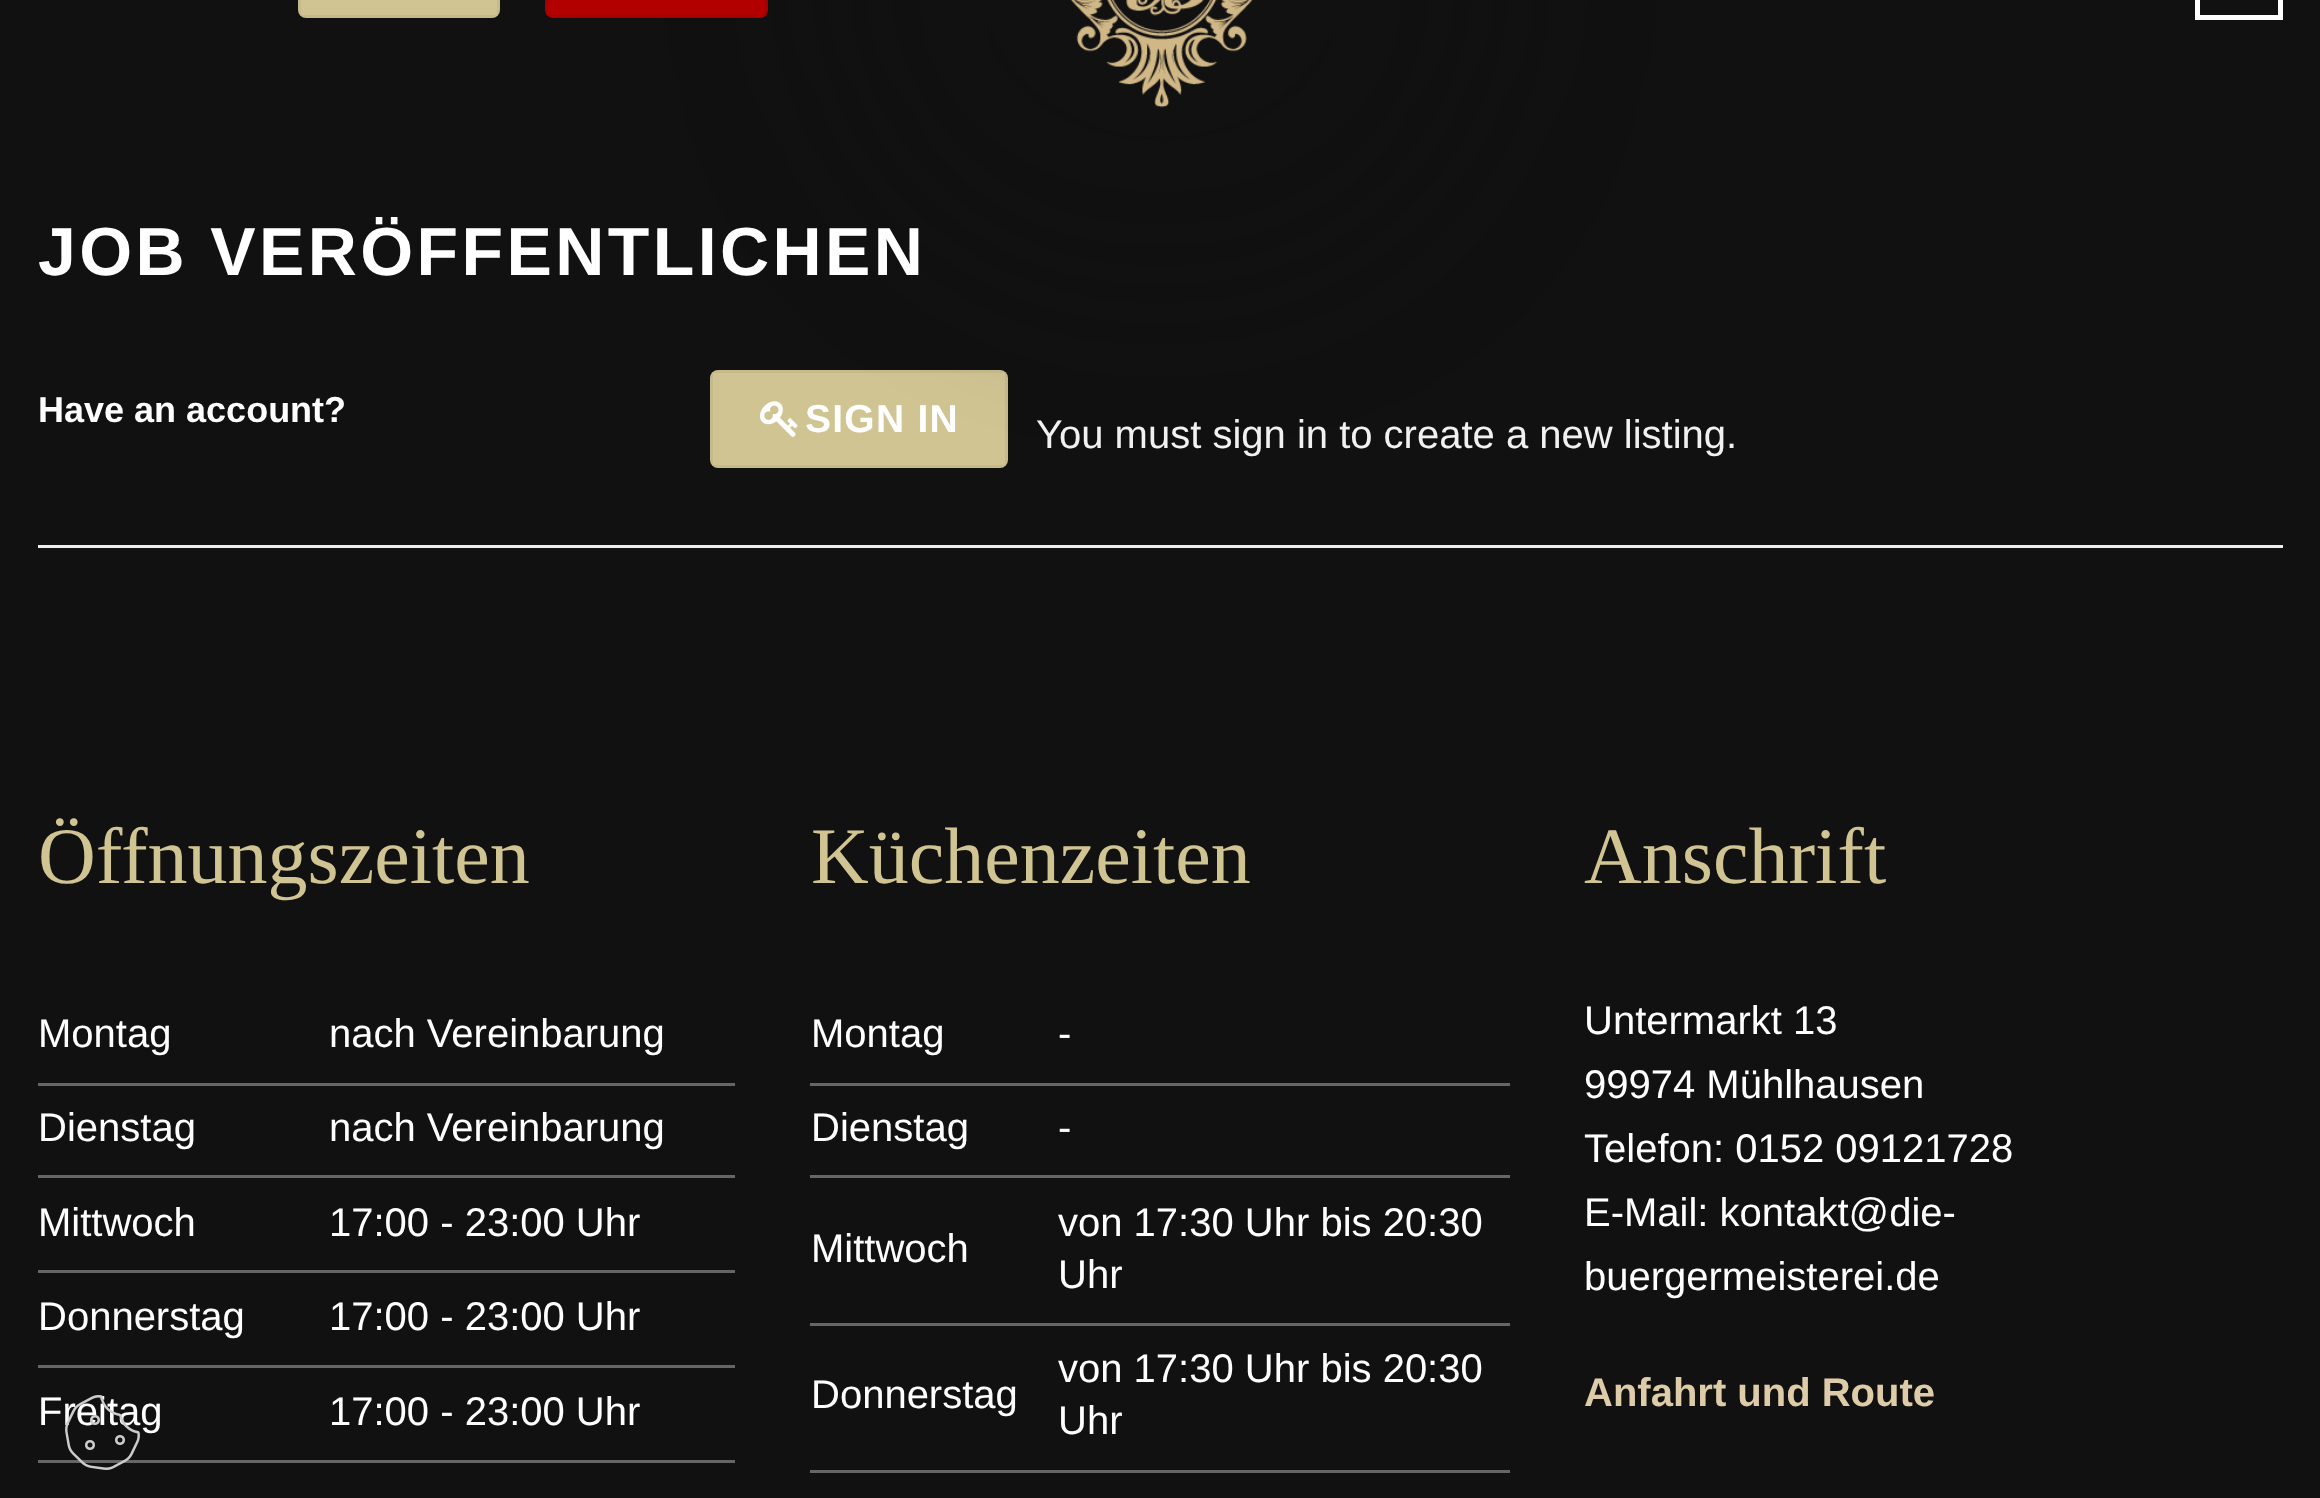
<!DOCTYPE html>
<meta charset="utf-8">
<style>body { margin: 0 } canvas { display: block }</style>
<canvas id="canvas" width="2320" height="1498"></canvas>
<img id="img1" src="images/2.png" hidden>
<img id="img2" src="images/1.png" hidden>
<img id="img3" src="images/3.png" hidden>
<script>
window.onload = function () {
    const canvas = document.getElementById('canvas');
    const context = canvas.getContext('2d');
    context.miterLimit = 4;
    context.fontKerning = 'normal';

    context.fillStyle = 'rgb(17, 17, 17)';
    context.fillRect(0, 0, 2320, 1498);
    context.fillStyle = 'rgb(209, 196, 147)';
    context.beginPath();
    context.roundRect(298, -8, 202, 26, 8);
    context.fill();
    context.strokeStyle = 'rgba(0, 0, 0, 0.05)';
    context.lineWidth = 3;
    context.strokeRect(299.5, -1.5, 199, 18);
    context.beginPath();
    context.roundRect(710, 370, 298, 98, 8);
    context.fill();
    context.strokeRect(711.5, 371.5, 295, 95);
    context.drawImage(document.getElementById('img1'), 760, 401, 38, 36);
    context.save();
    context.beginPath();
    context.moveTo(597, 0);
    context.lineTo(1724, 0);
    context.lineTo(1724, 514);
    context.lineTo(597, 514);
    context.closePath();
    context.moveTo(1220, -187.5);
    context.bezierCurveTo(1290.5, -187.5, 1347.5, -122, 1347.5, -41);
    context.bezierCurveTo(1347.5, 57.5, 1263.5, 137.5, 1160, 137.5);
    context.bezierCurveTo(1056.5, 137.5, 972.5, 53, 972.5, -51);
    context.bezierCurveTo(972.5, -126.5, 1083.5, -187.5, 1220, -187.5);
    context.closePath();
    context.clip('evenodd');
    context.fillStyle = 'rgba(17, 18, 17, 0.3)';
    context.filter = 'blur(75px)';
    context.beginPath();
    context.roundRect(823, -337, 675, 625, 338);
    context.fill();
    context.filter = 'none';
    context.restore();
    context.fillStyle = 'rgb(178, 0, 0)';
    context.beginPath();
    context.roundRect(545, -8, 223, 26, 8);
    context.fill();
    context.strokeRect(546.5, -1.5, 220, 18);
    context.drawImage(document.getElementById('img2'), 1070, 0, 183, 108);
    context.strokeStyle = 'rgb(255, 255, 255)';
    context.lineWidth = 5;
    context.strokeRect(2197.5, -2.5, 83, 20);
    context.fillStyle = 'rgb(238, 238, 238)';
    context.fillRect(38, 545, 2245, 3);
    context.fillStyle = 'rgb(102, 102, 102)';
    context.fillRect(38, 1083, 697, 3);
    context.fillRect(38, 1175, 697, 3);
    context.fillRect(38, 1270, 697, 3);
    context.fillRect(38, 1365, 697, 3);
    context.fillRect(38, 1460, 697, 3);
    context.fillRect(810, 1083, 700, 3);
    context.fillRect(810, 1175, 700, 3);
    context.fillRect(810, 1323, 700, 3);
    context.fillRect(810, 1470, 700, 3);
    context.letterSpacing = '3.4px';
    context.font = 'bold 68px Liberation Sans';
    context.fillStyle = 'rgb(255, 255, 255)';
    context.fillText('JOB VERÖFFENTLICHEN', 38, 275);
    context.letterSpacing = '0px';
    context.font = 'bold 36px Liberation Sans';
    context.fillText('Have an account?', 38, 422);
    context.letterSpacing = '1.25px';
    context.font = 'bold 39px Liberation Sans';
    context.fillText('SIGN IN', 805, 432);
    context.letterSpacing = '0px';
    context.font = '40px Liberation Sans';
    context.fillStyle = 'rgb(241, 241, 241)';
    context.fillText('You must sign in to create a new listing.', 1036, 448);
    context.font = '80px Liberation Serif';
    context.fillStyle = 'rgb(209, 196, 147)';
    context.fillText('Öffnungszeiten', 38, 883);
    context.font = '40px Liberation Sans';
    context.fillStyle = 'rgb(255, 255, 255)';
    context.fillText('Montag', 38, 1047);
    context.fillText('nach Vereinbarung', 329, 1047);
    context.fillText('Dienstag', 38, 1141);
    context.fillText('nach Vereinbarung', 329, 1141);
    context.fillText('Mittwoch', 38, 1236);
    context.fillText('17:00 - 23:00 Uhr', 329, 1236);
    context.fillText('Donnerstag', 38, 1330);
    context.fillText('17:00 - 23:00 Uhr', 329, 1330);
    context.fillText('Freitag', 38, 1425);
    context.fillText('17:00 - 23:00 Uhr', 329, 1425);
    context.font = '80px Liberation Serif';
    context.fillStyle = 'rgb(209, 196, 147)';
    context.fillText('Küchenzeiten', 811, 883);
    context.font = '40px Liberation Sans';
    context.fillStyle = 'rgb(255, 255, 255)';
    context.fillText('Montag', 811, 1047);
    context.fillText('-', 1058, 1047);
    context.fillText('Dienstag', 811, 1141);
    context.fillText('-', 1058, 1141);
    context.fillText('Mittwoch', 811, 1262);
    context.fillText('von 17:30 Uhr bis 20:30', 1058, 1236);
    context.fillText('Uhr', 1058, 1288);
    context.fillText('Donnerstag', 811, 1408);
    context.fillText('von 17:30 Uhr bis 20:30', 1058, 1382);
    context.fillText('Uhr', 1058, 1434);
    context.font = '80px Liberation Serif';
    context.fillStyle = 'rgb(209, 196, 147)';
    context.fillText('Anschrift', 1584, 883);
    context.font = '40px Liberation Sans';
    context.fillStyle = 'rgb(255, 255, 255)';
    context.fillText('Untermarkt 13', 1584, 1034);
    context.fillText('99974 Mühlhausen', 1584, 1098);
    context.fillText('Telefon: 0152 09121728', 1584, 1162);
    context.fillText('E-Mail: kontakt@die-', 1584, 1226);
    context.fillText('buergermeisterei.de', 1584, 1290);
    context.font = 'bold 40px Liberation Sans';
    context.fillStyle = 'rgb(222, 204, 169)';
    context.fillText('Anfahrt und Route', 1584, 1406);
    context.drawImage(document.getElementById('img3'), 65, 1395, 75, 75);
};
</script>
